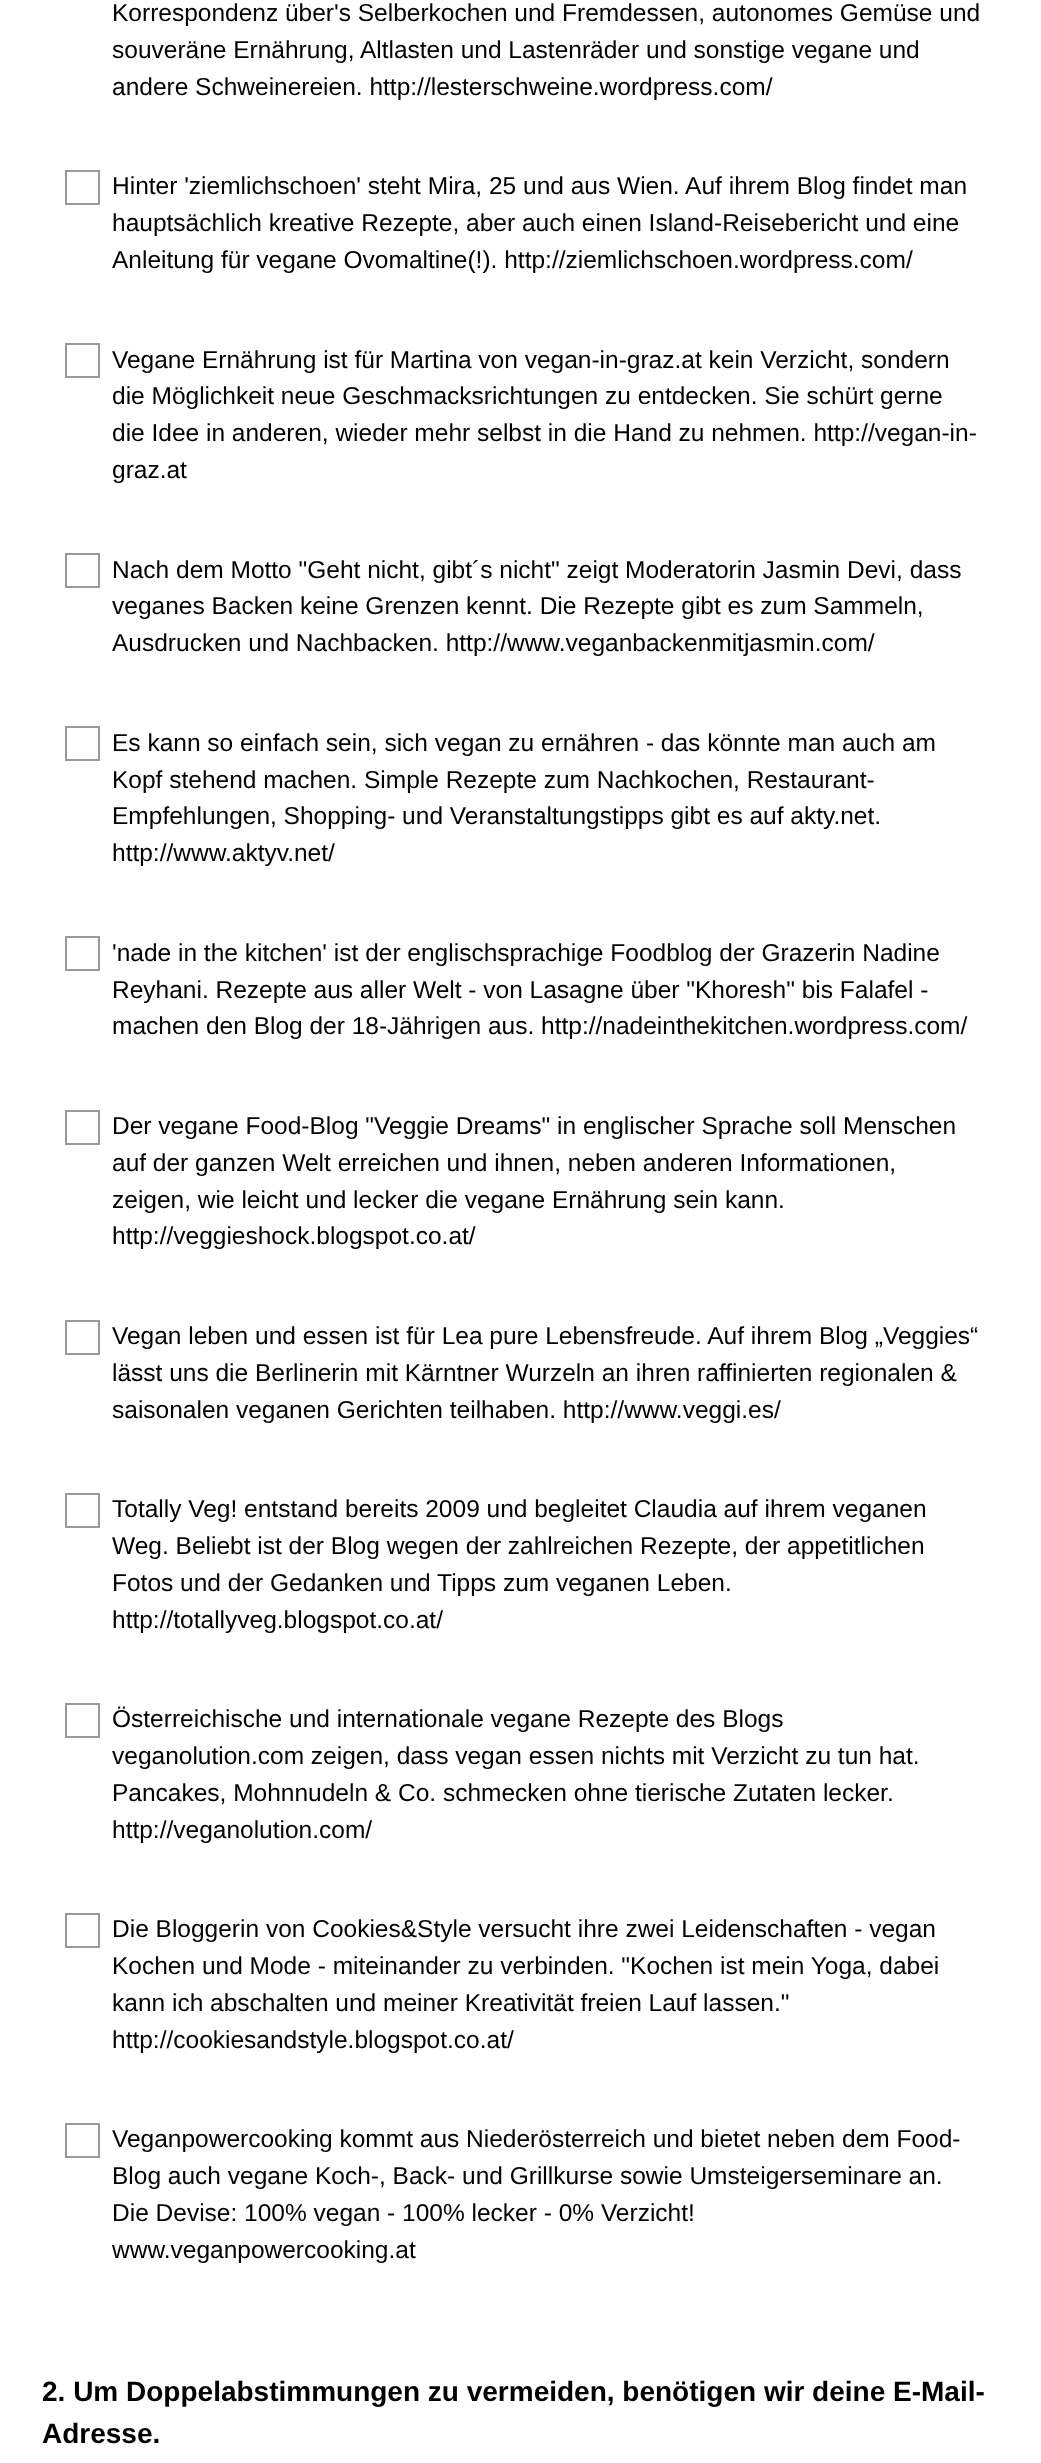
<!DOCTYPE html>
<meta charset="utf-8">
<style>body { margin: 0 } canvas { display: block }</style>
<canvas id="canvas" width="1041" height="2463"></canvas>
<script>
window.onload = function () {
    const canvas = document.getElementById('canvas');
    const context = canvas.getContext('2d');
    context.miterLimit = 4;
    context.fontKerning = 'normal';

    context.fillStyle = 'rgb(255, 255, 255)';
    context.fillRect(0, 0, 1041, 2463);
    context.strokeStyle = 'rgb(153, 153, 153)';
    context.lineWidth = 2;
    context.strokeRect(66, 171, 33, 33);
    context.strokeRect(66, 344, 33, 33);
    context.strokeRect(66, 554, 33, 33);
    context.strokeRect(66, 727, 33, 33);
    context.strokeRect(66, 937, 33, 33);
    context.strokeRect(66, 1111, 33, 33);
    context.strokeRect(66, 1321, 33, 33);
    context.strokeRect(66, 1494, 33, 33);
    context.strokeRect(66, 1704, 33, 33);
    context.strokeRect(66, 1914, 33, 33);
    context.strokeRect(66, 2124, 33, 33);
    context.font = '24.5px Liberation Sans';
    context.fillStyle = 'rgb(0, 0, 0)';
    context.fillText('Korrespondenz über\'s Selberkochen und Fremdessen, autonomes Gemüse und', 112, 21);
    context.fillText('souveräne Ernährung, Altlasten und Lastenräder und sonstige vegane und', 112, 58);
    context.fillText('andere Schweinereien. http://lesterschweine.wordpress.com/', 112, 95);
    context.fillText('Hinter \'ziemlichschoen\' steht Mira, 25 und aus Wien. Auf ihrem Blog findet man', 112, 194);
    context.fillText('hauptsächlich kreative Rezepte, aber auch einen Island-Reisebericht und eine', 112, 231);
    context.fillText('Anleitung für vegane Ovomaltine(!). http://ziemlichschoen.wordpress.com/', 112, 268);
    context.fillText('Vegane Ernährung ist für Martina von vegan-in-graz.at kein Verzicht, sondern', 112, 368);
    context.fillText('die Möglichkeit neue Geschmacksrichtungen zu entdecken. Sie schürt gerne', 112, 404);
    context.fillText('die Idee in anderen, wieder mehr selbst in die Hand zu nehmen. http://vegan-in-', 112, 441);
    context.fillText('graz.at', 112, 478);
    context.fillText('Nach dem Motto "Geht nicht, gibt´s nicht" zeigt Moderatorin Jasmin Devi, dass', 112, 578);
    context.fillText('veganes Backen keine Grenzen kennt. Die Rezepte gibt es zum Sammeln,', 112, 614);
    context.fillText('Ausdrucken und Nachbacken. http://www.veganbackenmitjasmin.com/', 112, 651);
    context.fillText('Es kann so einfach sein, sich vegan zu ernähren - das könnte man auch am', 112, 751);
    context.fillText('Kopf stehend machen. Simple Rezepte zum Nachkochen, Restaurant-', 112, 788);
    context.fillText('Empfehlungen, Shopping- und Veranstaltungstipps gibt es auf akty.net.', 112, 824);
    context.fillText('http://www.aktyv.net/', 112, 861);
    context.fillText('\'nade in the kitchen\' ist der englischsprachige Foodblog der Grazerin Nadine', 112, 961);
    context.fillText('Reyhani. Rezepte aus aller Welt - von Lasagne über "Khoresh" bis Falafel -', 112, 998);
    context.fillText('machen den Blog der 18-Jährigen aus. http://nadeinthekitchen.wordpress.com/', 112, 1034);
    context.fillText('Der vegane Food-Blog "Veggie Dreams" in englischer Sprache soll Menschen', 112, 1134);
    context.fillText('auf der ganzen Welt erreichen und ihnen, neben anderen Informationen,', 112, 1171);
    context.fillText('zeigen, wie leicht und lecker die vegane Ernährung sein kann.', 112, 1208);
    context.fillText('http://veggieshock.blogspot.co.at/', 112, 1244);
    context.fillText('Vegan leben und essen ist für Lea pure Lebensfreude. Auf ihrem Blog „Veggies“', 112, 1344);
    context.fillText('lässt uns die Berlinerin mit Kärntner Wurzeln an ihren raffinierten regionalen &', 112, 1381);
    context.fillText('saisonalen veganen Gerichten teilhaben. http://www.veggi.es/', 112, 1418);
    context.fillText('Totally Veg! entstand bereits 2009 und begleitet Claudia auf ihrem veganen', 112, 1517);
    context.fillText('Weg. Beliebt ist der Blog wegen der zahlreichen Rezepte, der appetitlichen', 112, 1554);
    context.fillText('Fotos und der Gedanken und Tipps zum veganen Leben.', 112, 1591);
    context.fillText('http://totallyveg.blogspot.co.at/', 112, 1628);
    context.fillText('Österreichische und internationale vegane Rezepte des Blogs', 112, 1727);
    context.fillText('veganolution.com zeigen, dass vegan essen nichts mit Verzicht zu tun hat.', 112, 1764);
    context.fillText('Pancakes, Mohnnudeln & Co. schmecken ohne tierische Zutaten lecker.', 112, 1801);
    context.fillText('http://veganolution.com/', 112, 1838);
    context.fillText('Die Bloggerin von Cookies&Style versucht ihre zwei Leidenschaften - vegan', 112, 1937);
    context.fillText('Kochen und Mode - miteinander zu verbinden. "Kochen ist mein Yoga, dabei', 112, 1974);
    context.fillText('kann ich abschalten und meiner Kreativität freien Lauf lassen."', 112, 2011);
    context.fillText('http://cookiesandstyle.blogspot.co.at/', 112, 2048);
    context.fillText('Veganpowercooking kommt aus Niederösterreich und bietet neben dem Food-', 112, 2147);
    context.fillText('Blog auch vegane Koch-, Back- und Grillkurse sowie Umsteigerseminare an.', 112, 2184);
    context.fillText('Die Devise: 100% vegan - 100% lecker - 0% Verzicht!', 112, 2221);
    context.fillText('www.veganpowercooking.at', 112, 2258);
    context.font = 'bold 28px Liberation Sans';
    context.fillText('2. Um Doppelabstimmungen zu vermeiden, benötigen wir deine E-Mail-', 42, 2401);
    context.fillText('Adresse.', 42, 2443);
};
</script>
